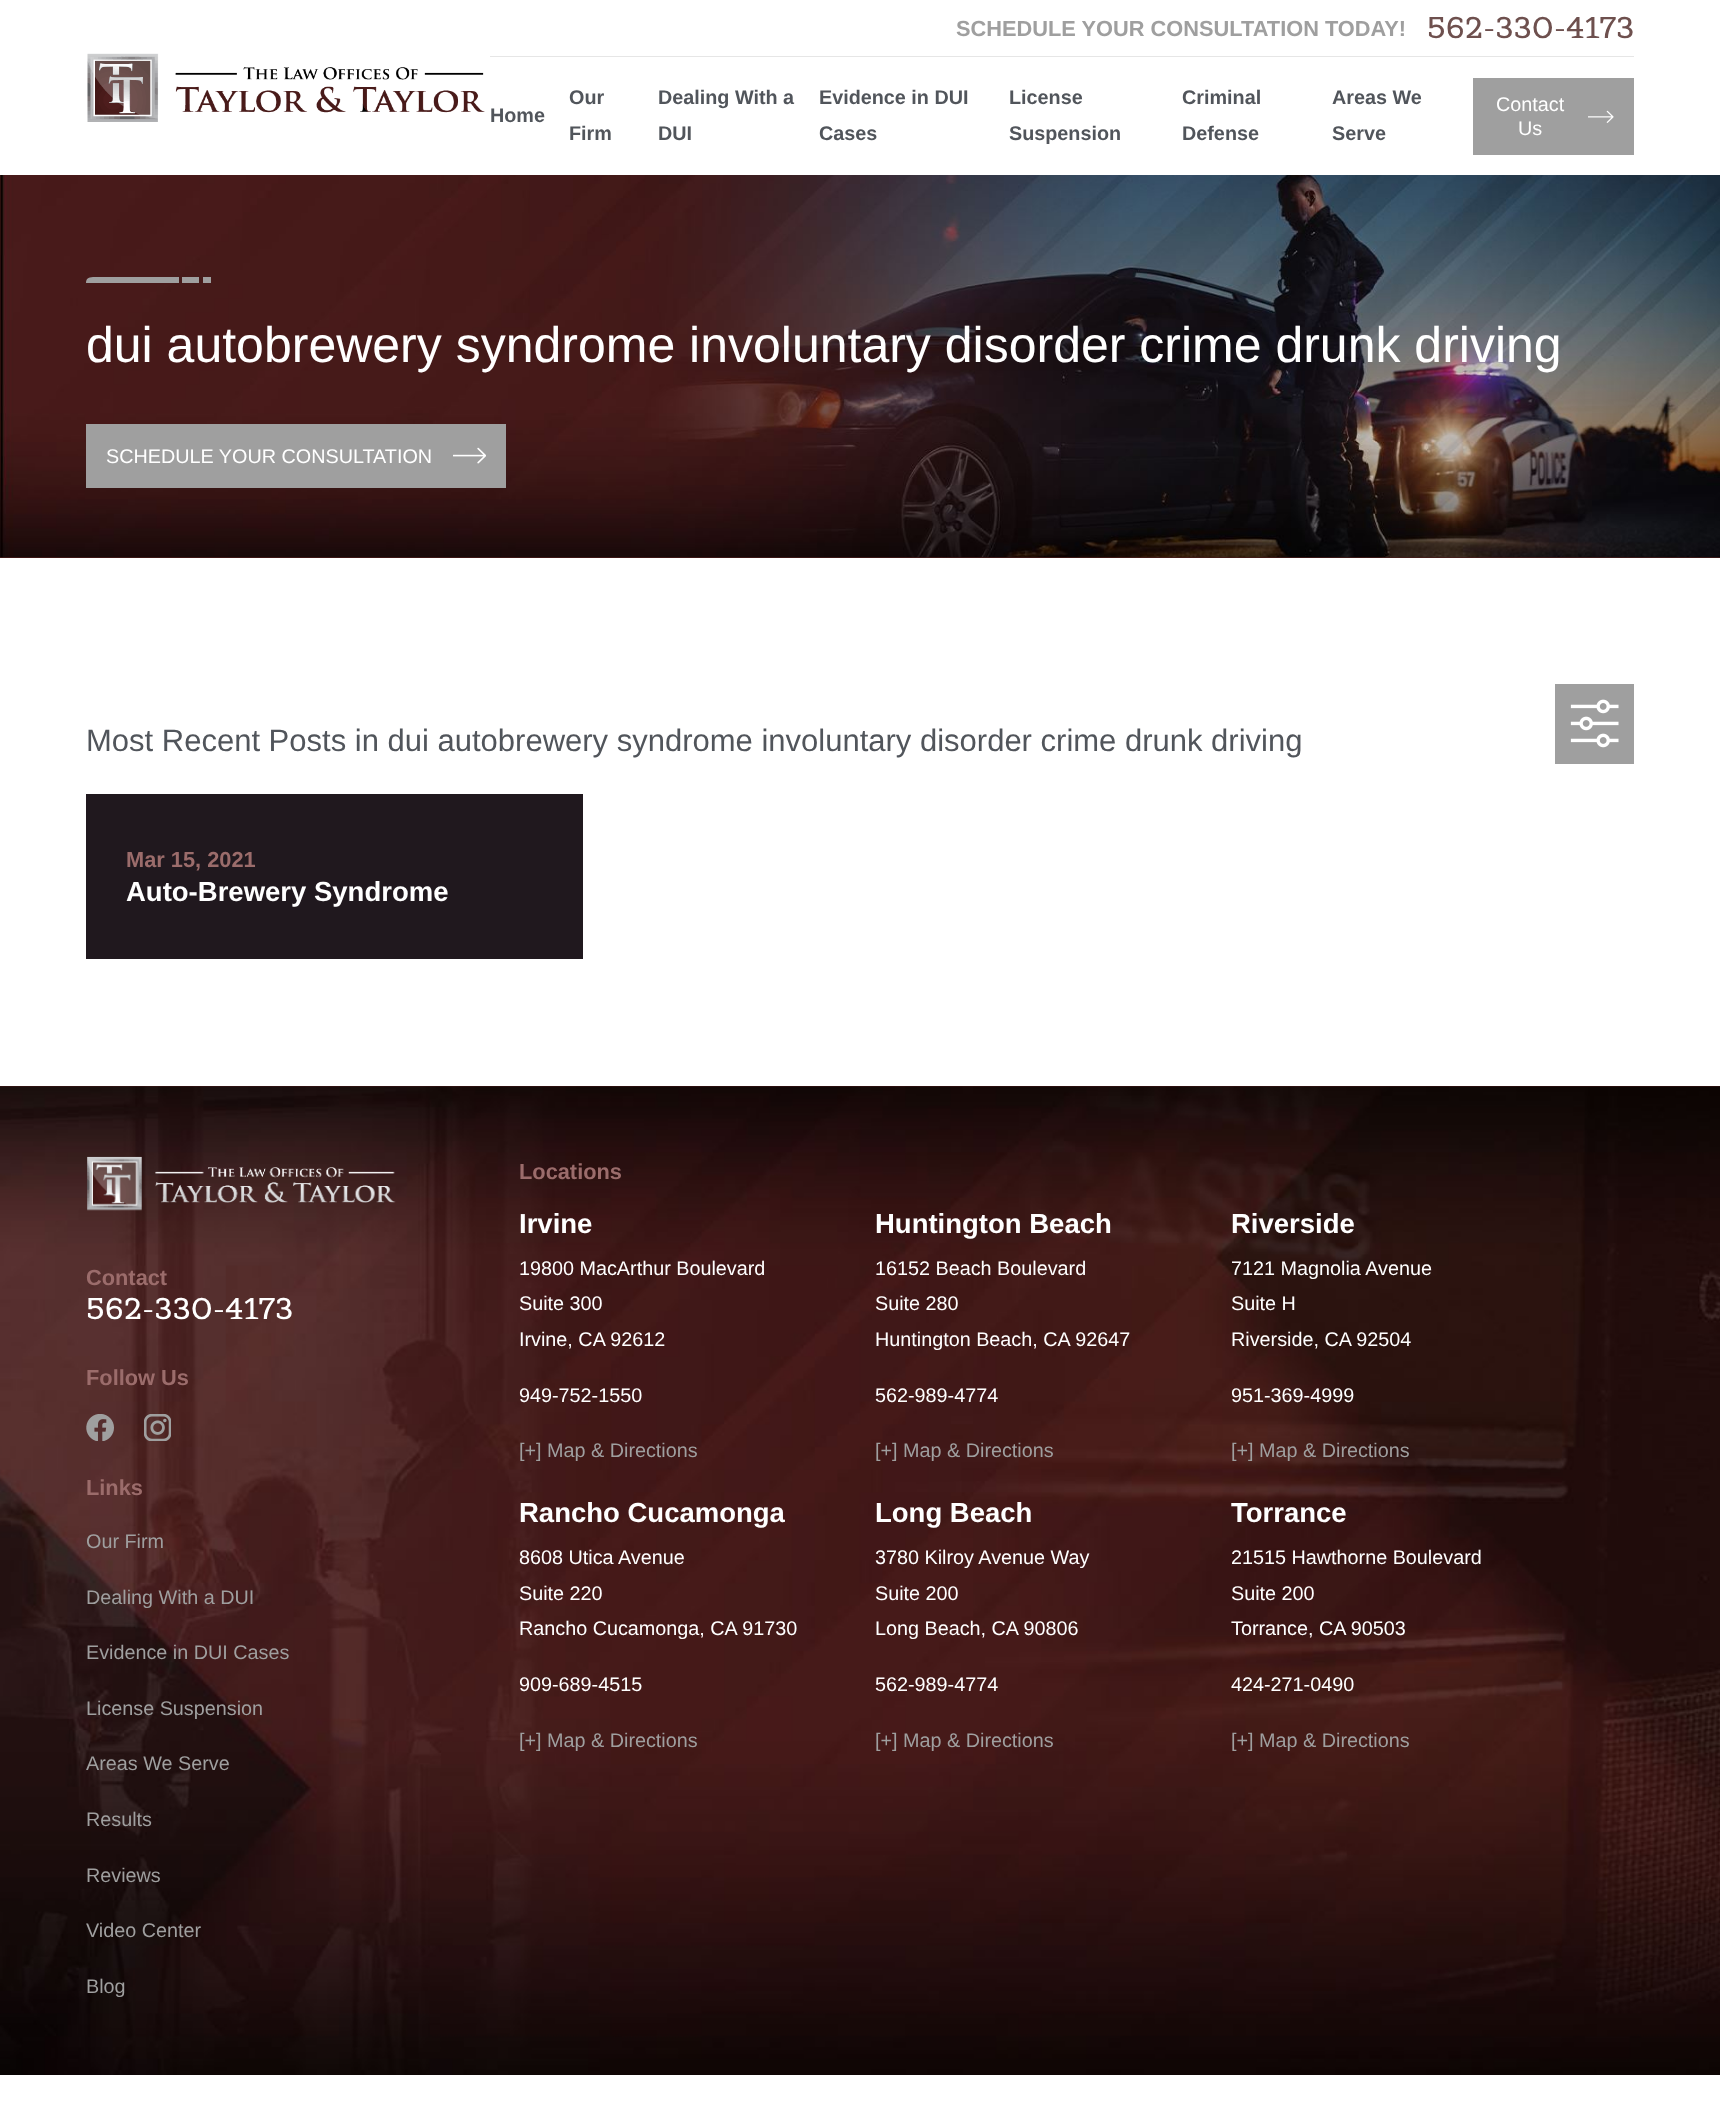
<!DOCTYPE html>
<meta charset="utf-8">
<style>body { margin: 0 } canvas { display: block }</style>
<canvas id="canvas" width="1720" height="2124"></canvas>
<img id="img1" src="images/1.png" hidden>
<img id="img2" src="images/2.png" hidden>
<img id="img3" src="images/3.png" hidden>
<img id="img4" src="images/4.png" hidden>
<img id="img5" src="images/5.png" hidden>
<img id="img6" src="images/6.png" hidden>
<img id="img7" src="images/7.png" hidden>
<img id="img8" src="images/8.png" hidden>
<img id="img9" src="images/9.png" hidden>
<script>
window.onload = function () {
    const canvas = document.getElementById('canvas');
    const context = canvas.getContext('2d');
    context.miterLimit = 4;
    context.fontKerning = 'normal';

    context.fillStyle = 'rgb(255, 255, 255)';
    context.fillRect(0, 0, 1720, 2124);
    context.drawImage(document.getElementById('img1'), 87, 53, 398, 69);
    context.fillStyle = 'rgb(230, 230, 230)';
    context.fillRect(490, 56, 1144, 1);
    context.fillStyle = 'rgb(159, 159, 159)';
    context.fillRect(1473, 78, 161, 77);
    context.drawImage(document.getElementById('img2'), 1588, 110, 26, 13);
    context.fillStyle = 'rgb(73, 27, 26)';
    context.fillRect(0, 557, 1720, 1);
    context.drawImage(document.getElementById('img3'), 0, 175, 1720, 383);
    context.fillStyle = 'rgb(159, 159, 159)';
    context.beginPath();
    context.moveTo(203, 283);
    context.lineTo(203, 277);
    context.lineTo(211, 277);
    context.lineTo(211, 283);
    context.closePath();
    context.moveTo(182, 277);
    context.lineTo(199, 277);
    context.lineTo(199, 283);
    context.lineTo(182, 283);
    context.closePath();
    context.moveTo(86, 283);
    context.bezierCurveTo(86, 276, 92, 277, 100, 277);
    context.lineTo(179, 277);
    context.lineTo(179, 283);
    context.closePath();
    context.fill();
    context.fillRect(86, 424, 420, 64);
    context.drawImage(document.getElementById('img4'), 453, 447, 33, 17);
    context.fillRect(1555, 684, 79, 80);
    context.drawImage(document.getElementById('img5'), 1570, 699, 49, 49);
    context.fillStyle = 'rgb(32, 24, 30)';
    context.fillRect(86, 794, 497, 165);
    context.fillStyle = 'rgb(73, 27, 26)';
    context.fillRect(0, 1086, 1720, 1);
    context.drawImage(document.getElementById('img6'), 0, 1086, 1720, 989);
    context.drawImage(document.getElementById('img7'), 87, 1156, 309, 55);
    context.drawImage(document.getElementById('img8'), 86, 1414, 28, 27);
    context.drawImage(document.getElementById('img9'), 144, 1414, 27, 27);
    context.font = 'bold 21.8px Arimo';
    context.fillStyle = 'rgb(159, 159, 159)';
    context.fillText('SCHEDULE YOUR CONSULTATION TODAY!', 956, 36);
    context.font = '29.75px Belgrano';
    context.fillStyle = 'rgb(110, 80, 78)';
    context.fillText('562-330-4173', 1427, 38);
    context.font = 'bold 19.8px Arimo';
    context.fillStyle = 'rgb(81, 85, 91)';
    context.fillText('Home', 490, 122);
    context.fillText('Our', 569, 104);
    context.fillText('Firm', 569, 140);
    context.fillText('Dealing With a', 658, 104);
    context.fillText('DUI', 658, 140);
    context.fillText('Evidence in DUI', 819, 104);
    context.fillText('Cases', 819, 140);
    context.fillText('License', 1009, 104);
    context.fillText('Suspension', 1009, 140);
    context.fillText('Criminal', 1182, 104);
    context.fillText('Defense', 1182, 140);
    context.fillText('Areas We', 1332, 104);
    context.fillText('Serve', 1332, 140);
    context.font = '19.8px Arimo';
    context.fillStyle = 'rgb(255, 255, 255)';
    context.fillText('Contact', 1496, 111);
    context.fillText('Us', 1518, 135);
    context.font = '50px Arimo';
    context.fillText('dui autobrewery syndrome involuntary disorder crime drunk driving', 86, 362);
    context.font = '19.8px Arimo';
    context.fillText('SCHEDULE YOUR CONSULTATION', 106, 463);
    context.font = '31px Arimo';
    context.fillStyle = 'rgb(81, 85, 91)';
    context.fillText('Most Recent Posts in dui autobrewery syndrome involuntary disorder crime drunk driving', 86, 751);
    context.font = 'bold 21.8px Arimo';
    context.fillStyle = 'rgb(155, 108, 107)';
    context.fillText('Mar 15, 2021', 126, 867);
    context.font = 'bold 27.5px Arimo';
    context.fillStyle = 'rgb(255, 255, 255)';
    context.fillText('Auto-Brewery Syndrome', 126, 901);
    context.font = 'bold 21.8px Arimo';
    context.fillStyle = 'rgb(155, 108, 107)';
    context.fillText('Contact', 86, 1285);
    context.font = '29.75px Belgrano';
    context.fillStyle = 'rgb(255, 255, 255)';
    context.fillText('562-330-4173', 86, 1319);
    context.font = 'bold 21.8px Arimo';
    context.fillStyle = 'rgb(155, 108, 107)';
    context.fillText('Follow Us', 86, 1385);
    context.fillText('Links', 86, 1495);
    context.font = '19.8px Arimo';
    context.fillStyle = 'rgb(159, 159, 159)';
    context.fillText('Our Firm', 86, 1548);
    context.fillText('Dealing With a DUI', 86, 1604);
    context.fillText('Evidence in DUI Cases', 86, 1659);
    context.fillText('License Suspension', 86, 1715);
    context.fillText('Areas We Serve', 86, 1770);
    context.fillText('Results', 86, 1826);
    context.fillText('Reviews', 86, 1882);
    context.fillText('Video Center', 86, 1937);
    context.fillText('Blog', 86, 1993);
    context.font = 'bold 21.8px Arimo';
    context.fillStyle = 'rgb(155, 108, 107)';
    context.fillText('Locations', 519, 1179);
    context.font = 'bold 27.5px Arimo';
    context.fillStyle = 'rgb(255, 255, 255)';
    context.fillText('Irvine', 519, 1233);
    context.font = '19.8px Arimo';
    context.fillText('19800 MacArthur Boulevard', 519, 1275);
    context.fillText('Suite 300', 519, 1310);
    context.fillText('Irvine, CA 92612', 519, 1346);
    context.fillText('949-752-1550', 519, 1402);
    context.fillStyle = 'rgb(159, 159, 159)';
    context.fillText('[+] Map & Directions', 519, 1457);
    context.font = 'bold 27.5px Arimo';
    context.fillStyle = 'rgb(255, 255, 255)';
    context.fillText('Huntington Beach', 875, 1233);
    context.font = '19.8px Arimo';
    context.fillText('16152 Beach Boulevard', 875, 1275);
    context.fillText('Suite 280', 875, 1310);
    context.fillText('Huntington Beach, CA 92647', 875, 1346);
    context.fillText('562-989-4774', 875, 1402);
    context.fillStyle = 'rgb(159, 159, 159)';
    context.fillText('[+] Map & Directions', 875, 1457);
    context.font = 'bold 27.5px Arimo';
    context.fillStyle = 'rgb(255, 255, 255)';
    context.fillText('Riverside', 1231, 1233);
    context.font = '19.8px Arimo';
    context.fillText('7121 Magnolia Avenue', 1231, 1275);
    context.fillText('Suite H', 1231, 1310);
    context.fillText('Riverside, CA 92504', 1231, 1346);
    context.fillText('951-369-4999', 1231, 1402);
    context.fillStyle = 'rgb(159, 159, 159)';
    context.fillText('[+] Map & Directions', 1231, 1457);
    context.font = 'bold 27.5px Arimo';
    context.fillStyle = 'rgb(255, 255, 255)';
    context.fillText('Rancho Cucamonga', 519, 1522);
    context.font = '19.8px Arimo';
    context.fillText('8608 Utica Avenue', 519, 1564);
    context.fillText('Suite 220', 519, 1600);
    context.fillText('Rancho Cucamonga, CA 91730', 519, 1635);
    context.fillText('909-689-4515', 519, 1691);
    context.fillStyle = 'rgb(159, 159, 159)';
    context.fillText('[+] Map & Directions', 519, 1747);
    context.font = 'bold 27.5px Arimo';
    context.fillStyle = 'rgb(255, 255, 255)';
    context.fillText('Long Beach', 875, 1522);
    context.font = '19.8px Arimo';
    context.fillText('3780 Kilroy Avenue Way', 875, 1564);
    context.fillText('Suite 200', 875, 1600);
    context.fillText('Long Beach, CA 90806', 875, 1635);
    context.fillText('562-989-4774', 875, 1691);
    context.fillStyle = 'rgb(159, 159, 159)';
    context.fillText('[+] Map & Directions', 875, 1747);
    context.font = 'bold 27.5px Arimo';
    context.fillStyle = 'rgb(255, 255, 255)';
    context.fillText('Torrance', 1231, 1522);
    context.font = '19.8px Arimo';
    context.fillText('21515 Hawthorne Boulevard', 1231, 1564);
    context.fillText('Suite 200', 1231, 1600);
    context.fillText('Torrance, CA 90503', 1231, 1635);
    context.fillText('424-271-0490', 1231, 1691);
    context.fillStyle = 'rgb(159, 159, 159)';
    context.fillText('[+] Map & Directions', 1231, 1747);
};
</script>
